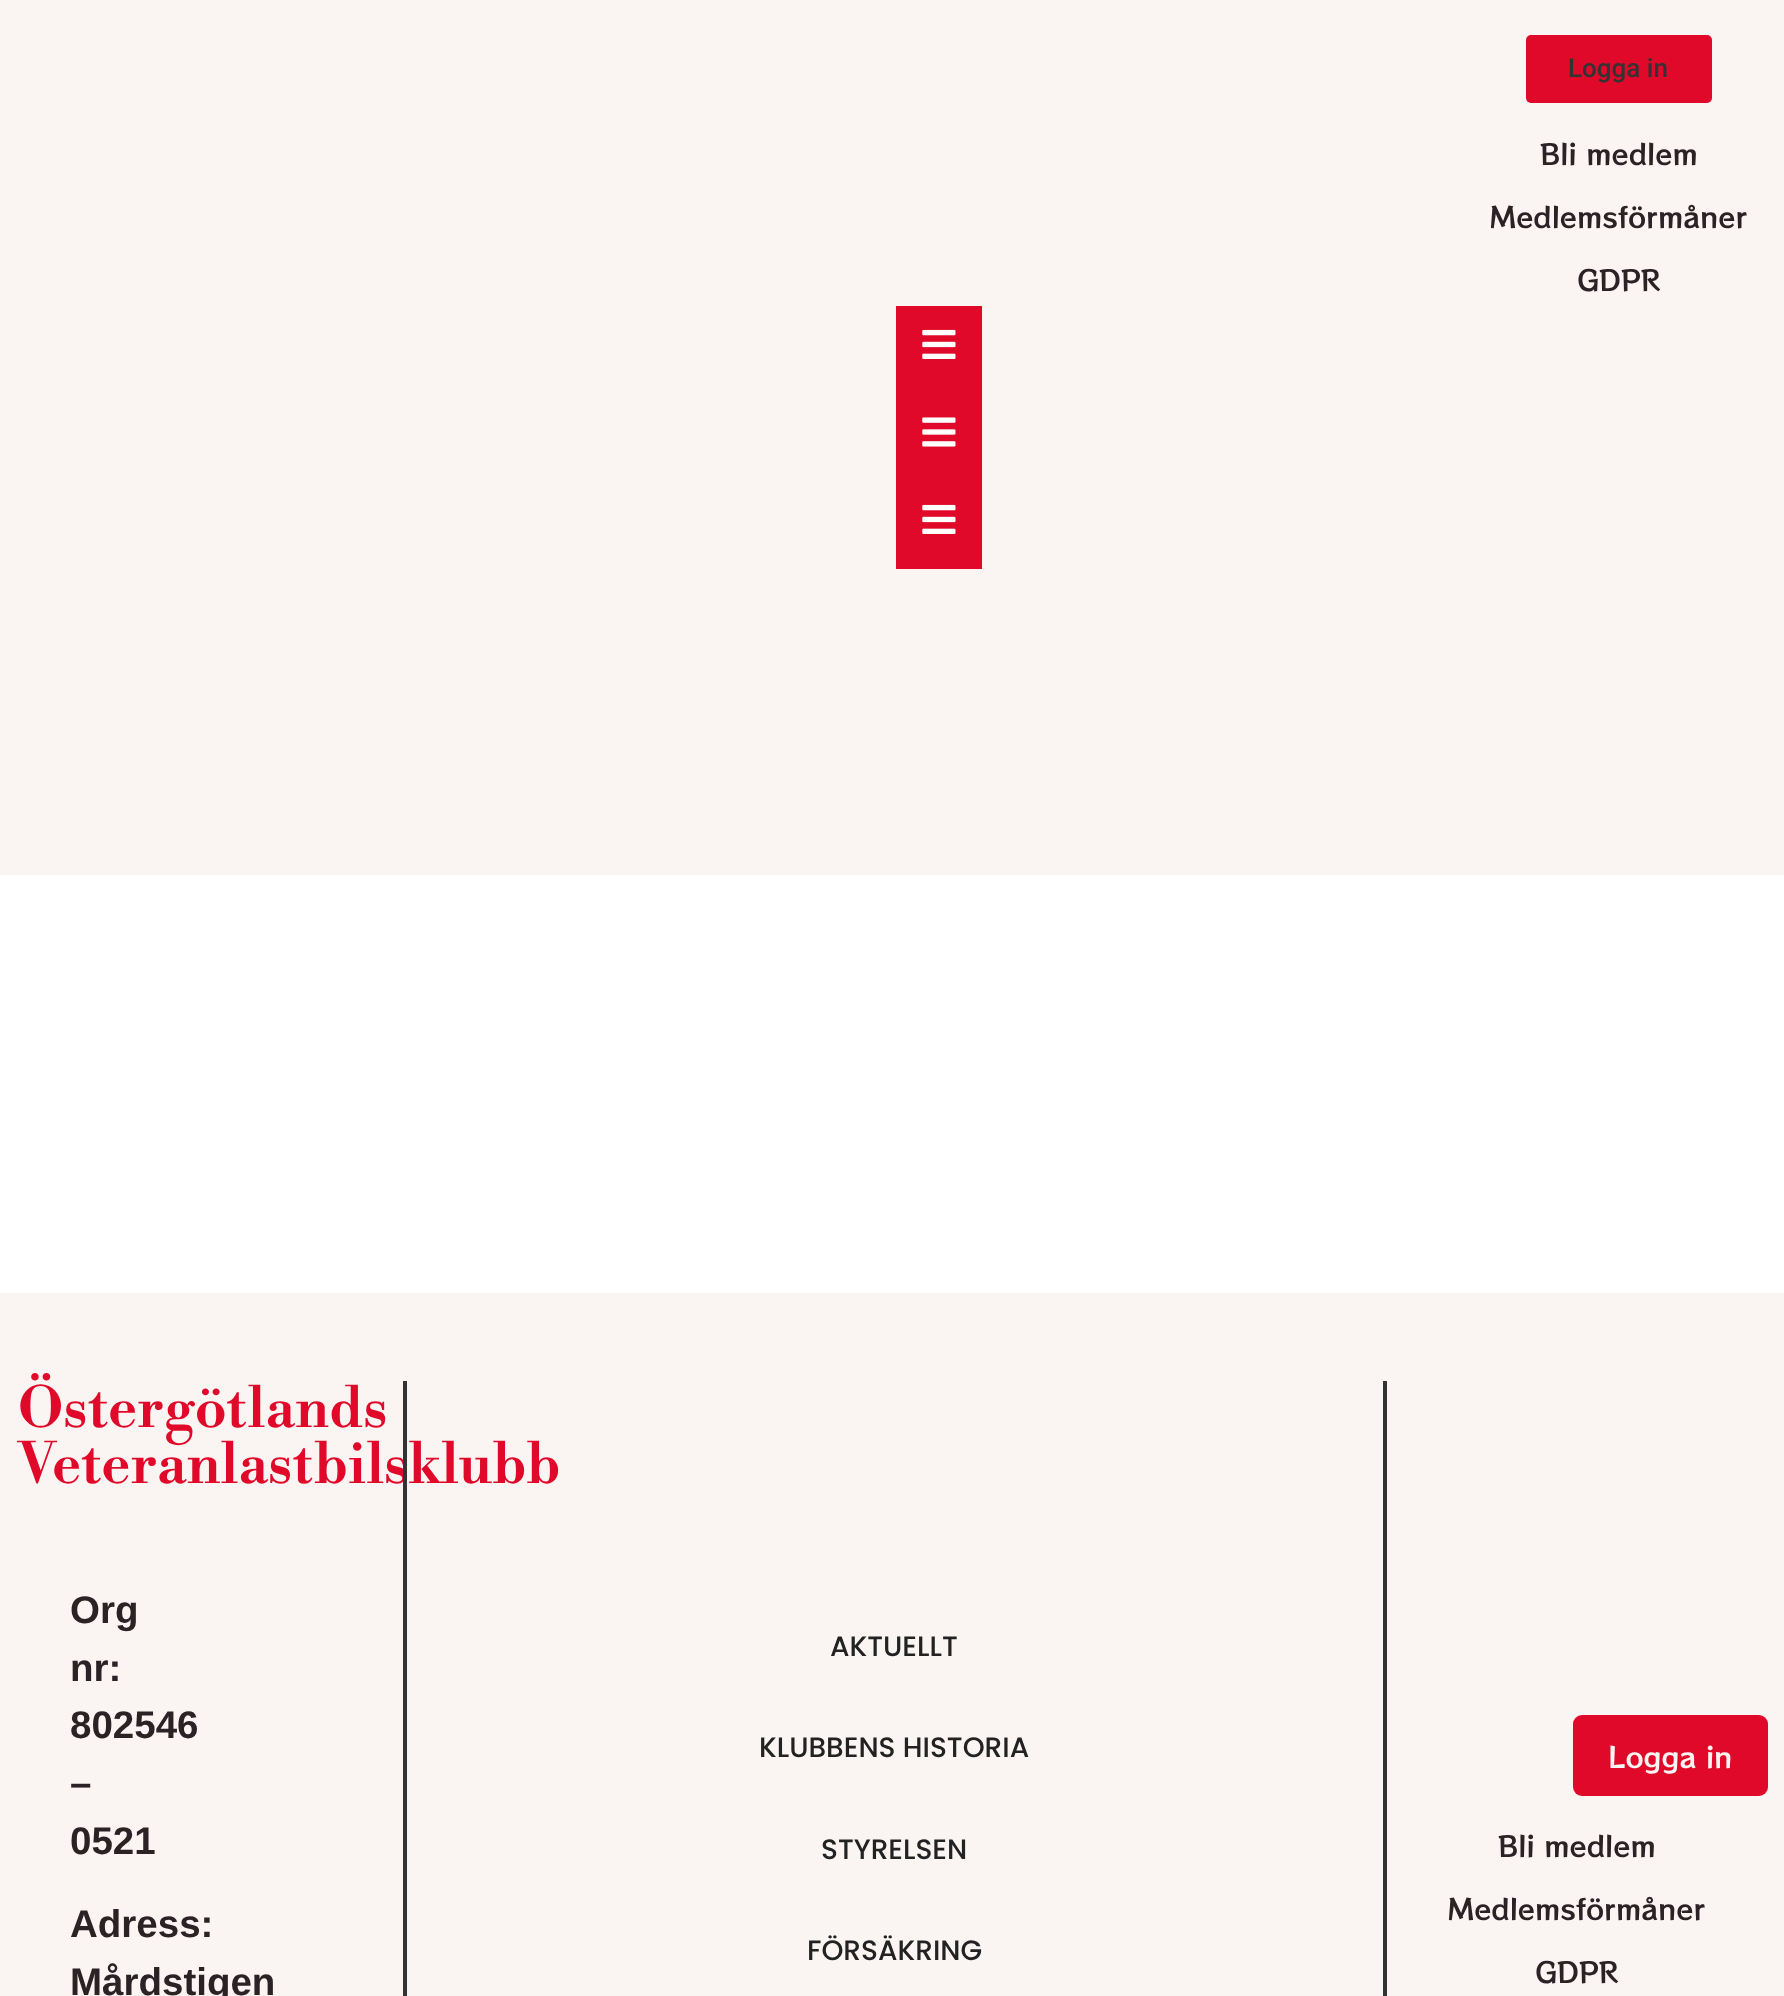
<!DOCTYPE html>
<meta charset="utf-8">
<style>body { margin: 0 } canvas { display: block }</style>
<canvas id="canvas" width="1784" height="1996"></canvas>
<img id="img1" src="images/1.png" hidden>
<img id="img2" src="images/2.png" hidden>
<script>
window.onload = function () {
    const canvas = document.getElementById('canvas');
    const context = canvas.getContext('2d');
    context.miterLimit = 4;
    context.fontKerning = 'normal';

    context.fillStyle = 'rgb(255, 255, 255)';
    context.fillRect(0, 0, 1784, 1996);
    context.fillStyle = 'rgb(250, 244, 243)';
    context.fillRect(0, 0, 1784, 875);
    context.fillStyle = 'rgb(225, 9, 41)';
    context.beginPath();
    context.roundRect(1526, 35, 186, 68, 5);
    context.fill();
    context.fillRect(896, 306, 86, 263);
    context.drawImage(document.getElementById('img1'), 922, 329, 34, 30);
    context.drawImage(document.getElementById('img2'), 922, 417, 34, 30);
    context.drawImage(document.getElementById('img1'), 922, 504, 34, 30);
    context.fillStyle = 'rgb(250, 244, 243)';
    context.fillRect(0, 1293, 1784, 703);
    context.fillStyle = 'rgb(51, 51, 51)';
    context.fillRect(1383, 1381, 4, 615);
    context.fillStyle = 'rgb(225, 9, 41)';
    context.beginPath();
    context.roundRect(1573, 1715, 195, 81, 9);
    context.fill();
    context.font = '500 26px Roboto';
    context.fillStyle = 'rgb(51, 51, 51)';
    context.fillText('Logga in', 1568, 77);
    context.font = '28px RocknRoll One';
    context.fillStyle = 'rgb(42, 34, 37)';
    context.fillText('Bli medlem', 1540, 165);
    context.fillText('Medlemsförmåner', 1490, 228);
    context.fillText('GDPR', 1577, 291);
    context.font = '600 56px Libre Bodoni';
    context.fillStyle = 'rgb(225, 9, 41)';
    context.fillText('Östergötlands', 18, 1427);
    context.fillText('Veteranlastbilsklubb', 18, 1483);
    context.font = 'bold 38.5px Liberation Sans';
    context.fillStyle = 'rgb(42, 34, 37)';
    context.fillText('Org', 70, 1623);
    context.fillText('nr:', 70, 1681);
    context.fillText('802546', 70, 1738);
    context.fillText('–', 70, 1796);
    context.fillText('0521', 70, 1854);
    context.fillText('Adress:', 70, 1937);
    context.fillText('Mårdstigen', 70, 1995);
    context.fillStyle = 'rgb(51, 51, 51)';
    context.fillRect(403, 1381, 4, 615);
    context.font = '500 28px Poppins';
    context.fillStyle = 'rgb(34, 34, 34)';
    context.fillText('AKTUELLT', 830, 1656);
    context.fillText('KLUBBENS HISTORIA', 759, 1757);
    context.fillText('STYRELSEN', 821, 1859);
    context.fillText('FÖRSÄKRING', 807, 1960);
    context.font = '28px RocknRoll One';
    context.fillStyle = 'rgb(250, 244, 243)';
    context.fillText('Logga in', 1608, 1768);
    context.fillStyle = 'rgb(42, 34, 37)';
    context.fillText('Bli medlem', 1498, 1857);
    context.fillText('Medlemsförmåner', 1448, 1920);
    context.fillText('GDPR', 1535, 1983);
};
</script>
